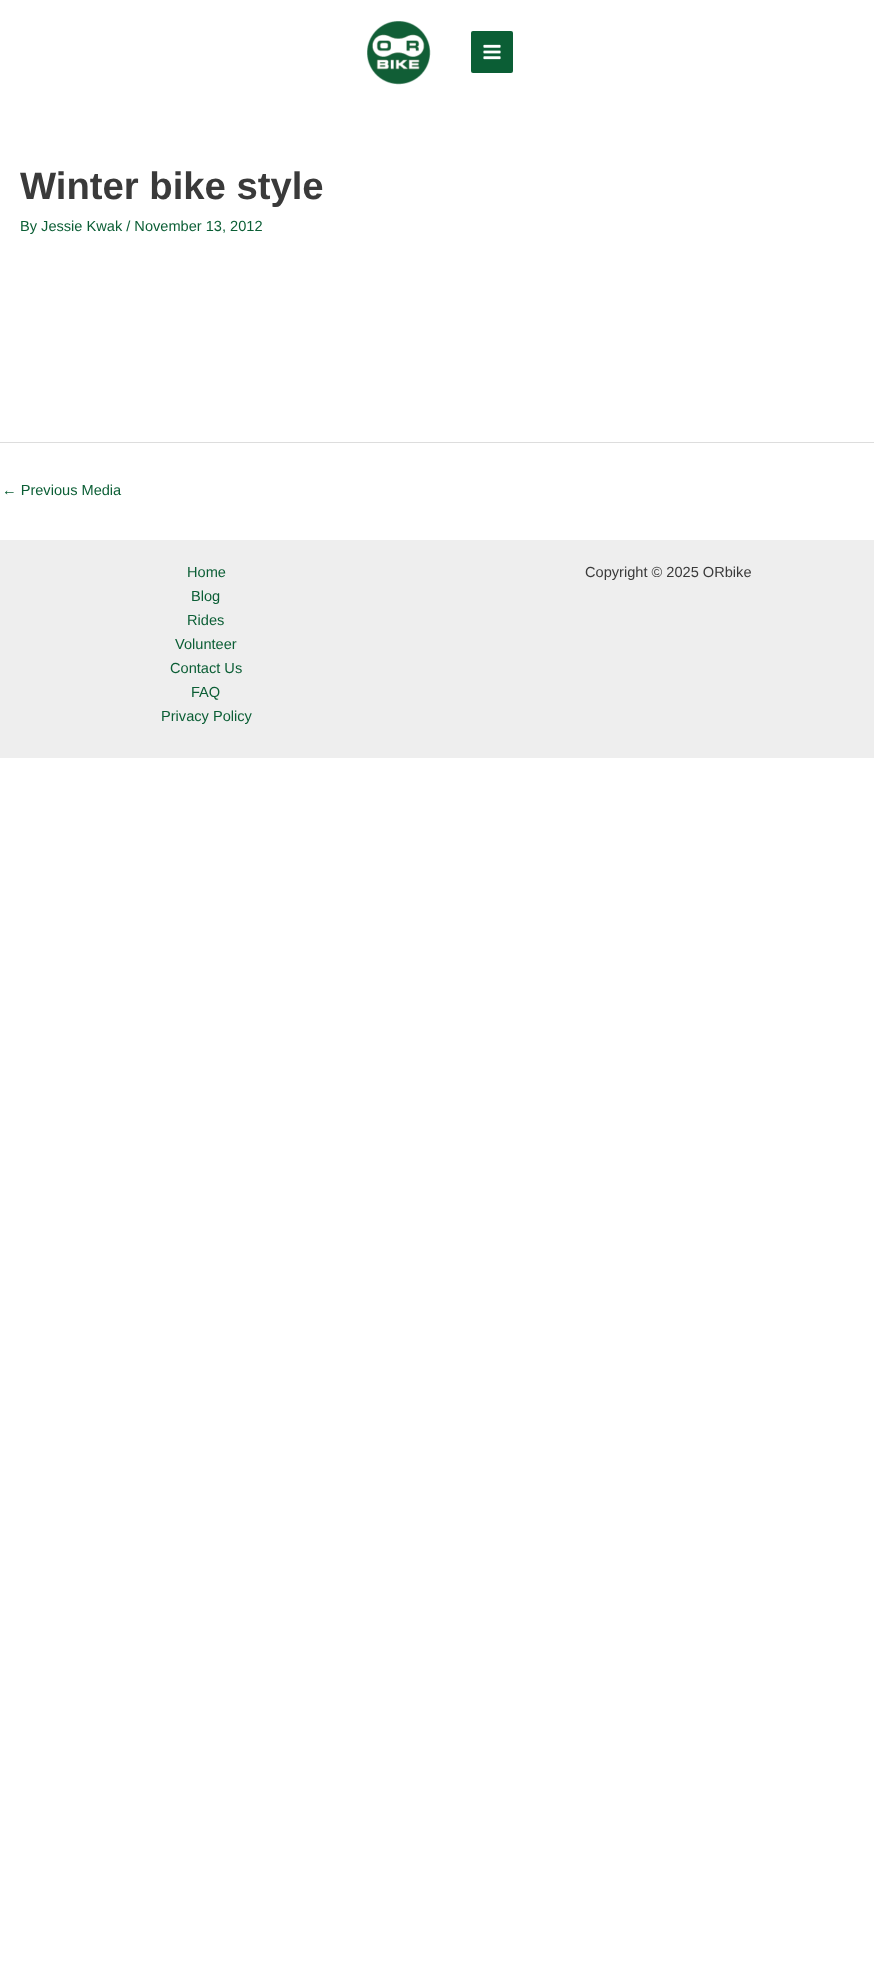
<!DOCTYPE html>
<meta charset="utf-8">
<style>body { margin: 0 } canvas { display: block }</style>
<canvas id="canvas" width="874" height="1961"></canvas>
<img id="img1" src="images/1.png" hidden>
<img id="img2" src="images/2.png" hidden>
<script>
window.onload = function () {
    const canvas = document.getElementById('canvas');
    const context = canvas.getContext('2d');
    context.miterLimit = 4;
    context.fontKerning = 'normal';

    context.fillStyle = 'rgb(255, 255, 255)';
    context.fillRect(0, 0, 874, 1961);
    context.drawImage(document.getElementById('img1'), 367, 21, 64, 64);
    context.fillStyle = 'rgb(11, 94, 53)';
    context.beginPath();
    context.roundRect(471, 31, 42, 42, 2);
    context.fill();
    context.drawImage(document.getElementById('img2'), 483, 44, 18, 16);
    context.fillStyle = 'rgb(221, 221, 221)';
    context.fillRect(0, 442, 874, 1);
    context.fillStyle = 'rgb(238, 238, 238)';
    context.fillRect(0, 540, 874, 218);
    context.font = 'bold 38.25px Liberation Sans';
    context.fillStyle = 'rgb(58, 58, 58)';
    context.fillText('Winter bike style', 20, 199);
    context.font = '14.6px Liberation Sans';
    context.fillStyle = 'rgb(11, 94, 53)';
    context.fillText('By Jessie Kwak / November 13, 2012', 20, 231);
    context.fillText('← Previous Media', 2, 495);
    context.fillText('Home', 187, 577);
    context.fillText('Blog', 191, 601);
    context.fillText('Rides', 187, 625);
    context.fillText('Volunteer', 175, 649);
    context.fillText('Contact Us', 170, 673);
    context.fillText('FAQ', 191, 697);
    context.fillText('Privacy Policy', 161, 721);
    context.fillStyle = 'rgb(58, 58, 58)';
    context.fillText('Copyright © 2025 ORbike', 585, 577);
};
</script>
